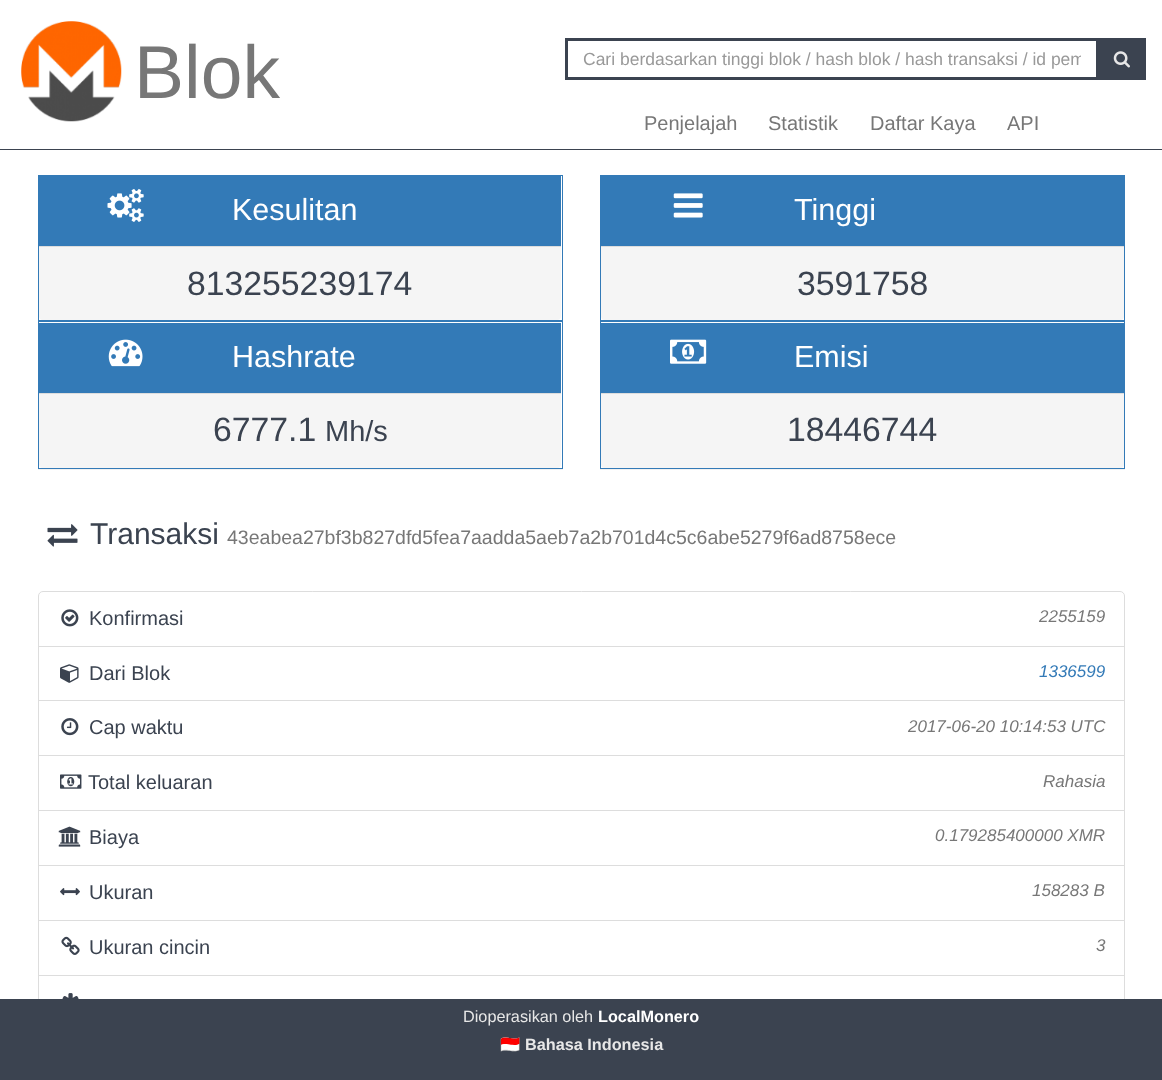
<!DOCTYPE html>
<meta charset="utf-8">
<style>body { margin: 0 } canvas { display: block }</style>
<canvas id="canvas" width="1162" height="1080"></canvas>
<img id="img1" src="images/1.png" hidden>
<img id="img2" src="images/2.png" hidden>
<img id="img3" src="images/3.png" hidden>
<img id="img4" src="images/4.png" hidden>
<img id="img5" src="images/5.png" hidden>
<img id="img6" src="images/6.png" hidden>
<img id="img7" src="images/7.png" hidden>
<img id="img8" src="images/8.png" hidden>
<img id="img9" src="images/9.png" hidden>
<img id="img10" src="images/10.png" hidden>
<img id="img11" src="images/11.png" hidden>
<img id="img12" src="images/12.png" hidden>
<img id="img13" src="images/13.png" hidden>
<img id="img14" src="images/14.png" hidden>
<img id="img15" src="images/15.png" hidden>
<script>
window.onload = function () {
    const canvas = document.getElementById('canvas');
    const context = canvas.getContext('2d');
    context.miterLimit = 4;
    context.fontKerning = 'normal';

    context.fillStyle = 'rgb(255, 255, 255)';
    context.fillRect(0, 0, 1162, 1080);
    context.fillStyle = 'rgb(59, 67, 80)';
    context.fillRect(0, 149, 1162, 1);
    context.drawImage(document.getElementById('img1'), 21, 21, 101, 101);
    context.strokeStyle = 'rgb(59, 67, 80)';
    context.lineWidth = 3;
    context.strokeRect(566.5, 39.5, 531, 39);
    context.fillRect(1099, 38, 47, 42);
    context.drawImage(document.getElementById('img2'), 1113, 51, 17, 17);
    context.strokeStyle = 'rgb(51, 122, 183)';
    context.lineWidth = 1;
    context.strokeRect(38.5, 175.5, 524, 145);
    context.fillStyle = 'rgb(51, 122, 183)';
    context.fillRect(39, 176, 522, 70);
    context.drawImage(document.getElementById('img3'), 107, 188, 37, 34);
    context.fillStyle = 'rgb(245, 245, 245)';
    context.beginPath();
    context.roundRect(39, 246, 522, 74, [0, 0, 4, 4]);
    context.fill();
    context.fillStyle = 'rgb(221, 221, 221)';
    context.fillRect(39, 246, 522, 1);
    context.strokeRect(600.5, 175.5, 524, 145);
    context.fillStyle = 'rgb(51, 122, 183)';
    context.fillRect(601, 176, 523, 70);
    context.drawImage(document.getElementById('img4'), 673, 193, 30, 25);
    context.fillStyle = 'rgb(245, 245, 245)';
    context.beginPath();
    context.roundRect(601, 246, 523, 74, [0, 0, 4, 4]);
    context.fill();
    context.fillStyle = 'rgb(221, 221, 221)';
    context.fillRect(601, 246, 523, 1);
    context.fillStyle = 'rgba(0, 0, 0, 0.05)';
    context.filter = 'blur(0.5px)';
    context.beginPath();
    context.rect(38, 323, 525, 147);
    context.fill();
    context.filter = 'none';
    context.fillStyle = 'rgb(255, 255, 255)';
    context.fillRect(39, 323, 523, 145);
    context.strokeRect(38.5, 321.5, 524, 147);
    context.fillStyle = 'rgb(51, 122, 183)';
    context.fillRect(39, 323, 522, 70);
    context.drawImage(document.getElementById('img5'), 108, 339, 35, 28);
    context.fillStyle = 'rgb(245, 245, 245)';
    context.beginPath();
    context.roundRect(39, 393, 522, 75, [0, 0, 4, 4]);
    context.fill();
    context.fillStyle = 'rgb(221, 221, 221)';
    context.fillRect(39, 393, 522, 1);
    context.fillStyle = 'rgba(0, 0, 0, 0.05)';
    context.filter = 'blur(0.5px)';
    context.beginPath();
    context.rect(600, 323, 525, 147);
    context.fill();
    context.filter = 'none';
    context.fillStyle = 'rgb(255, 255, 255)';
    context.fillRect(601, 323, 523, 145);
    context.strokeRect(600.5, 321.5, 524, 147);
    context.fillStyle = 'rgb(51, 122, 183)';
    context.fillRect(601, 323, 523, 70);
    context.drawImage(document.getElementById('img6'), 670, 339, 37, 25);
    context.fillStyle = 'rgb(245, 245, 245)';
    context.beginPath();
    context.roundRect(601, 393, 523, 75, [0, 0, 4, 4]);
    context.fill();
    context.fillStyle = 'rgb(221, 221, 221)';
    context.fillRect(601, 393, 523, 1);
    context.drawImage(document.getElementById('img7'), 47, 524, 31, 23);
    context.beginPath();
    context.roundRect(38.5, 591.5, 1086, 56, [4.5, 4.5, 0, 0]);
    context.strokeStyle = 'rgb(221, 221, 221)';
    context.stroke();
    context.drawImage(document.getElementById('img8'), 61, 609, 18, 18);
    context.fillStyle = 'rgb(255, 255, 255)';
    context.fillRect(39, 647, 1085, 1);
    context.strokeRect(38.5, 646.5, 1086, 54);
    context.drawImage(document.getElementById('img9'), 60, 664, 19, 19);
    context.strokeRect(38.5, 700.5, 1086, 55);
    context.drawImage(document.getElementById('img10'), 61, 718, 18, 18);
    context.strokeRect(38.5, 755.5, 1086, 55);
    context.drawImage(document.getElementById('img11'), 60, 774, 22, 15);
    context.strokeRect(38.5, 810.5, 1086, 55);
    context.drawImage(document.getElementById('img12'), 58, 826, 23, 21);
    context.strokeRect(38.5, 865.5, 1086, 55);
    context.drawImage(document.getElementById('img13'), 60, 888, 20, 8);
    context.strokeRect(38.5, 920.5, 1086, 55);
    context.drawImage(document.getElementById('img14'), 61, 936, 19, 19);
    context.strokeRect(38.5, 975.5, 1086, 55);
    context.drawImage(document.getElementById('img15'), 62, 993, 17, 6);
    context.fillStyle = 'rgb(59, 67, 80)';
    context.fillRect(0, 999, 1162, 81);
    context.font = '75px Liberation Sans';
    context.fillStyle = 'rgb(119, 119, 119)';
    context.fillText('Blok', 134, 98);
    context.save();
    context.beginPath();
    context.rect(583, 49, 498, 20);
    context.clip();
    context.font = '17.5px Liberation Sans';
    context.fillStyle = 'rgb(153, 153, 153)';
    context.fillText('Cari berdasarkan tinggi blok / hash blok / hash transaksi / id pem', 583, 65);
    context.restore();
    context.font = '20px Liberation Sans';
    context.fillText('Penjelajah', 644, 130);
    context.fillText('Statistik', 768, 130);
    context.fillText('Daftar Kaya', 870, 130);
    context.fillText('API', 1007, 130);
    context.font = '30.5px Liberation Sans';
    context.fillStyle = 'rgb(255, 255, 255)';
    context.fillText('Kesulitan', 232, 220);
    context.font = '33.75px Liberation Sans';
    context.fillStyle = 'rgb(59, 67, 80)';
    context.fillText('813255239174', 187, 295);
    context.font = '30.5px Liberation Sans';
    context.fillStyle = 'rgb(255, 255, 255)';
    context.fillText('Tinggi', 794, 220);
    context.font = '33.75px Liberation Sans';
    context.fillStyle = 'rgb(59, 67, 80)';
    context.fillText('3591758', 797, 295);
    context.font = '30.5px Liberation Sans';
    context.fillStyle = 'rgb(255, 255, 255)';
    context.fillText('Hashrate', 232, 367);
    context.font = '33.75px Liberation Sans';
    context.fillStyle = 'rgb(59, 67, 80)';
    context.fillText('6777.1', 213, 441);
    context.font = '29px Liberation Sans';
    context.fillText('Mh/s', 325, 441);
    context.font = '30.5px Liberation Sans';
    context.fillStyle = 'rgb(255, 255, 255)';
    context.fillText('Emisi', 794, 367);
    context.font = '33.75px Liberation Sans';
    context.fillStyle = 'rgb(59, 67, 80)';
    context.fillText('18446744', 787, 441);
    context.font = '30px Liberation Sans';
    context.fillText('Transaksi', 90, 544);
    context.font = '19.5px Liberation Sans';
    context.fillStyle = 'rgb(119, 119, 119)';
    context.fillText('43eabea27bf3b827dfd5fea7aadda5aeb7a2b701d4c5c6abe5279f6ad8758ece', 227, 544);
    context.font = '20px Liberation Sans';
    context.fillStyle = 'rgb(59, 67, 80)';
    context.fillText('Konfirmasi', 89, 625);
    context.font = 'italic 17px Liberation Sans';
    context.fillStyle = 'rgb(119, 119, 119)';
    context.fillText('2255159', 1039, 622);
    context.font = '20px Liberation Sans';
    context.fillStyle = 'rgb(59, 67, 80)';
    context.fillText('Dari Blok', 89, 680);
    context.font = 'italic 17px Liberation Sans';
    context.fillStyle = 'rgb(51, 122, 183)';
    context.fillText('1336599', 1039, 677);
    context.font = '20px Liberation Sans';
    context.fillStyle = 'rgb(59, 67, 80)';
    context.fillText('Cap waktu', 89, 734);
    context.font = 'italic 17px Liberation Sans';
    context.fillStyle = 'rgb(119, 119, 119)';
    context.fillText('2017-06-20 10:14:53 UTC', 908, 732);
    context.font = '20px Liberation Sans';
    context.fillStyle = 'rgb(59, 67, 80)';
    context.fillText('Total keluaran', 88, 789);
    context.font = 'italic 17px Liberation Sans';
    context.fillStyle = 'rgb(119, 119, 119)';
    context.fillText('Rahasia', 1043, 787);
    context.font = '20px Liberation Sans';
    context.fillStyle = 'rgb(59, 67, 80)';
    context.fillText('Biaya', 89, 844);
    context.font = 'italic 17px Liberation Sans';
    context.fillStyle = 'rgb(119, 119, 119)';
    context.fillText('0.179285400000 XMR', 935, 841);
    context.font = '20px Liberation Sans';
    context.fillStyle = 'rgb(59, 67, 80)';
    context.fillText('Ukuran', 89, 899);
    context.font = 'italic 17px Liberation Sans';
    context.fillStyle = 'rgb(119, 119, 119)';
    context.fillText('158283 B', 1032, 896);
    context.font = '20px Liberation Sans';
    context.fillStyle = 'rgb(59, 67, 80)';
    context.fillText('Ukuran cincin', 89, 954);
    context.font = 'italic 17px Liberation Sans';
    context.fillStyle = 'rgb(119, 119, 119)';
    context.fillText('3', 1096, 951);
    context.font = '16.25px Liberation Sans';
    context.fillStyle = 'rgb(231, 231, 231)';
    context.fillText('Dioperasikan oleh', 463, 1022);
    context.font = 'bold 16.25px Liberation Sans';
    context.fillStyle = 'rgb(255, 255, 255)';
    context.fillText('LocalMonero', 598, 1022);
    context.font = 'bold 16.25px Noto Color Emoji';
    context.fillStyle = 'rgb(231, 231, 231)';
    context.fillText('🇮🇩', 500, 1050);
    context.font = 'bold 16.25px Liberation Sans';
    context.fillText('Bahasa Indonesia', 525, 1050);
};
</script>
